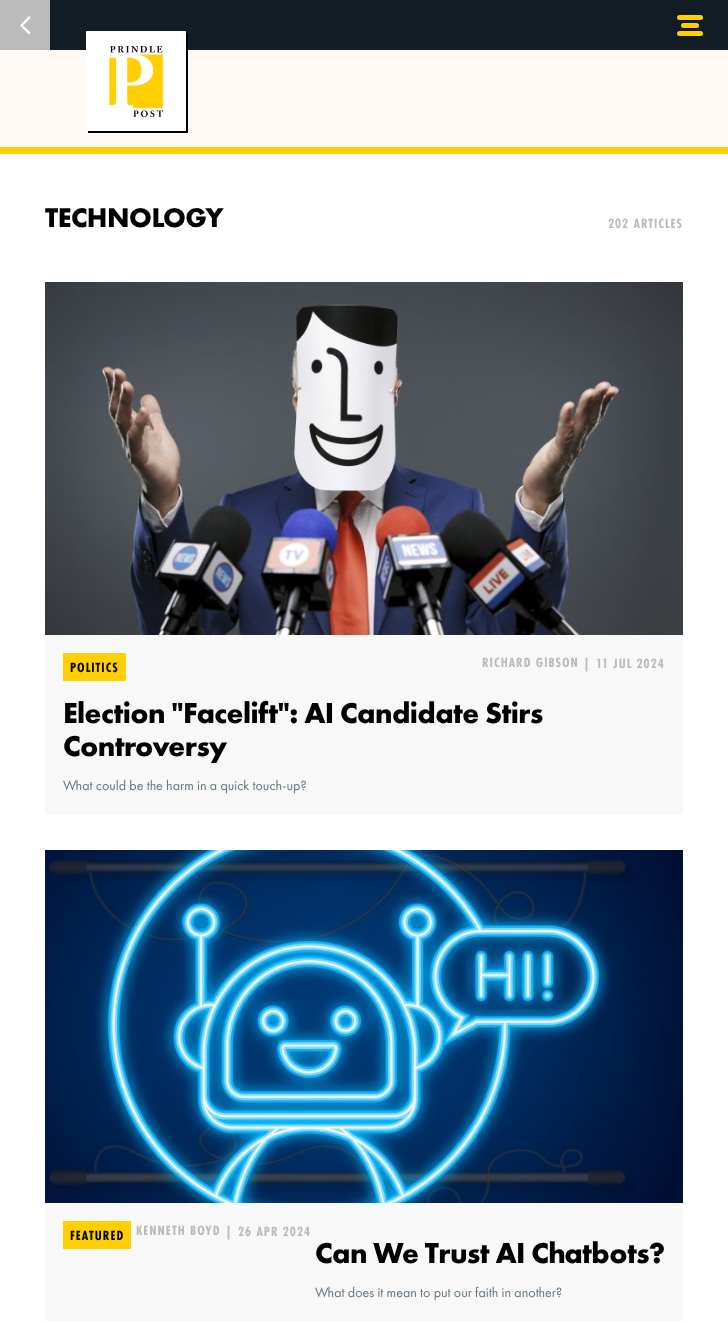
<!DOCTYPE html>
<meta charset="utf-8">
<style>body { margin: 0 } canvas { display: block }</style>
<canvas id="canvas" width="728" height="1324"></canvas>
<img id="img1" src="images/1.png" hidden>
<img id="img2" src="images/2.png" hidden>
<img id="img3" src="images/3.png" hidden>
<script>
window.onload = function () {
    const canvas = document.getElementById('canvas');
    const context = canvas.getContext('2d');
    context.miterLimit = 4;
    context.fontKerning = 'normal';

    context.fillStyle = 'rgb(254, 249, 245)';
    context.fillRect(0, 0, 728, 1324);
    context.fillStyle = 'rgb(17, 28, 36)';
    context.fillRect(50, 0, 678, 50);
    context.fillStyle = 'rgb(187, 187, 187)';
    context.fillRect(0, 0, 50, 50);
    context.fillStyle = 'rgb(255, 255, 255)';
    context.beginPath();
    context.moveTo(29, 16);
    context.lineTo(30.5, 18);
    context.lineTo(23, 25.5);
    context.lineTo(30.5, 32.5);
    context.lineTo(29, 34.5);
    context.lineTo(20, 25.5);
    context.closePath();
    context.fill('evenodd');
    context.fillStyle = 'rgb(255, 207, 1)';
    context.beginPath();
    context.roundRect(677, 15, 26, 5, 2.5);
    context.fill();
    context.beginPath();
    context.roundRect(681, 23, 18, 5, 2.5);
    context.fill();
    context.beginPath();
    context.roundRect(677, 31, 26, 5, 2.5);
    context.fill();
    context.fillRect(0, 147, 728, 7);
    context.fillStyle = 'rgb(0, 0, 0)';
    context.beginPath();
    context.moveTo(88, 131);
    context.lineTo(88, 133);
    context.lineTo(188, 133);
    context.lineTo(188, 33);
    context.lineTo(186, 33);
    context.lineTo(186, 131);
    context.closePath();
    context.fill();
    context.fillStyle = 'rgb(255, 255, 255)';
    context.fillRect(86, 31, 100, 100);
    context.drawImage(document.getElementById('img1'), 109, 46, 55, 72);
    context.fillRect(0, 154, 728, 1170);
    context.fillStyle = 'rgb(248, 248, 248)';
    context.fillRect(45, 635, 638, 179);
    context.drawImage(document.getElementById('img2'), 45, 282, 638, 353);
    context.fillStyle = 'rgb(255, 207, 1)';
    context.fillRect(63, 653, 63, 28);
    context.fillStyle = 'rgb(248, 248, 248)';
    context.fillRect(45, 1203, 638, 118);
    context.drawImage(document.getElementById('img3'), 45, 850, 638, 353);
    context.fillStyle = 'rgb(255, 207, 1)';
    context.fillRect(63, 1221, 68, 28);
    context.letterSpacing = '-0.5px';
    context.font = 'bold 28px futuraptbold';
    context.fillStyle = 'rgb(0, 0, 0)';
    context.fillText('TECHNOLOGY', 45, 227);
    context.letterSpacing = '1px';
    context.font = 'bold 14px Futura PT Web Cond';
    context.fillStyle = 'rgb(187, 187, 187)';
    context.fillText('202 ARTICLES', 608, 228);
    context.fillStyle = 'rgb(0, 0, 0)';
    context.fillText('POLITICS', 70, 672);
    context.fillStyle = 'rgb(187, 187, 187)';
    context.fillText('RICHARD GIBSON', 482, 667);
    context.fillText('|', 583, 668);
    context.fillText('11 JUL 2024', 596, 668);
    context.letterSpacing = '-0.6px';
    context.font = 'bold 30px futuraptbold';
    context.fillStyle = 'rgb(0, 0, 0)';
    context.fillText('Election "Facelift": AI Candidate Stirs', 63, 723);
    context.fillText('Controversy', 63, 756);
    context.letterSpacing = '0px';
    context.font = '14px Futura PT';
    context.fillStyle = 'rgb(101, 117, 128)';
    context.fillText('What could be the harm in a quick touch-up?', 63, 790);
    context.letterSpacing = '1px';
    context.font = 'bold 14px Futura PT Web Cond';
    context.fillStyle = 'rgb(0, 0, 0)';
    context.fillText('FEATURED', 70, 1240);
    context.fillStyle = 'rgb(187, 187, 187)';
    context.fillText('KENNETH BOYD', 136, 1235);
    context.fillText('|', 225, 1236);
    context.fillText('26 APR 2024', 238, 1236);
    context.letterSpacing = '-0.6px';
    context.font = 'bold 30px futuraptbold';
    context.fillStyle = 'rgb(0, 0, 0)';
    context.fillText('Can We Trust AI Chatbots?', 315, 1263);
    context.letterSpacing = '0px';
    context.font = '14px Futura PT';
    context.fillStyle = 'rgb(101, 117, 128)';
    context.fillText('What does it mean to put our faith in another?', 315, 1297);
};
</script>
